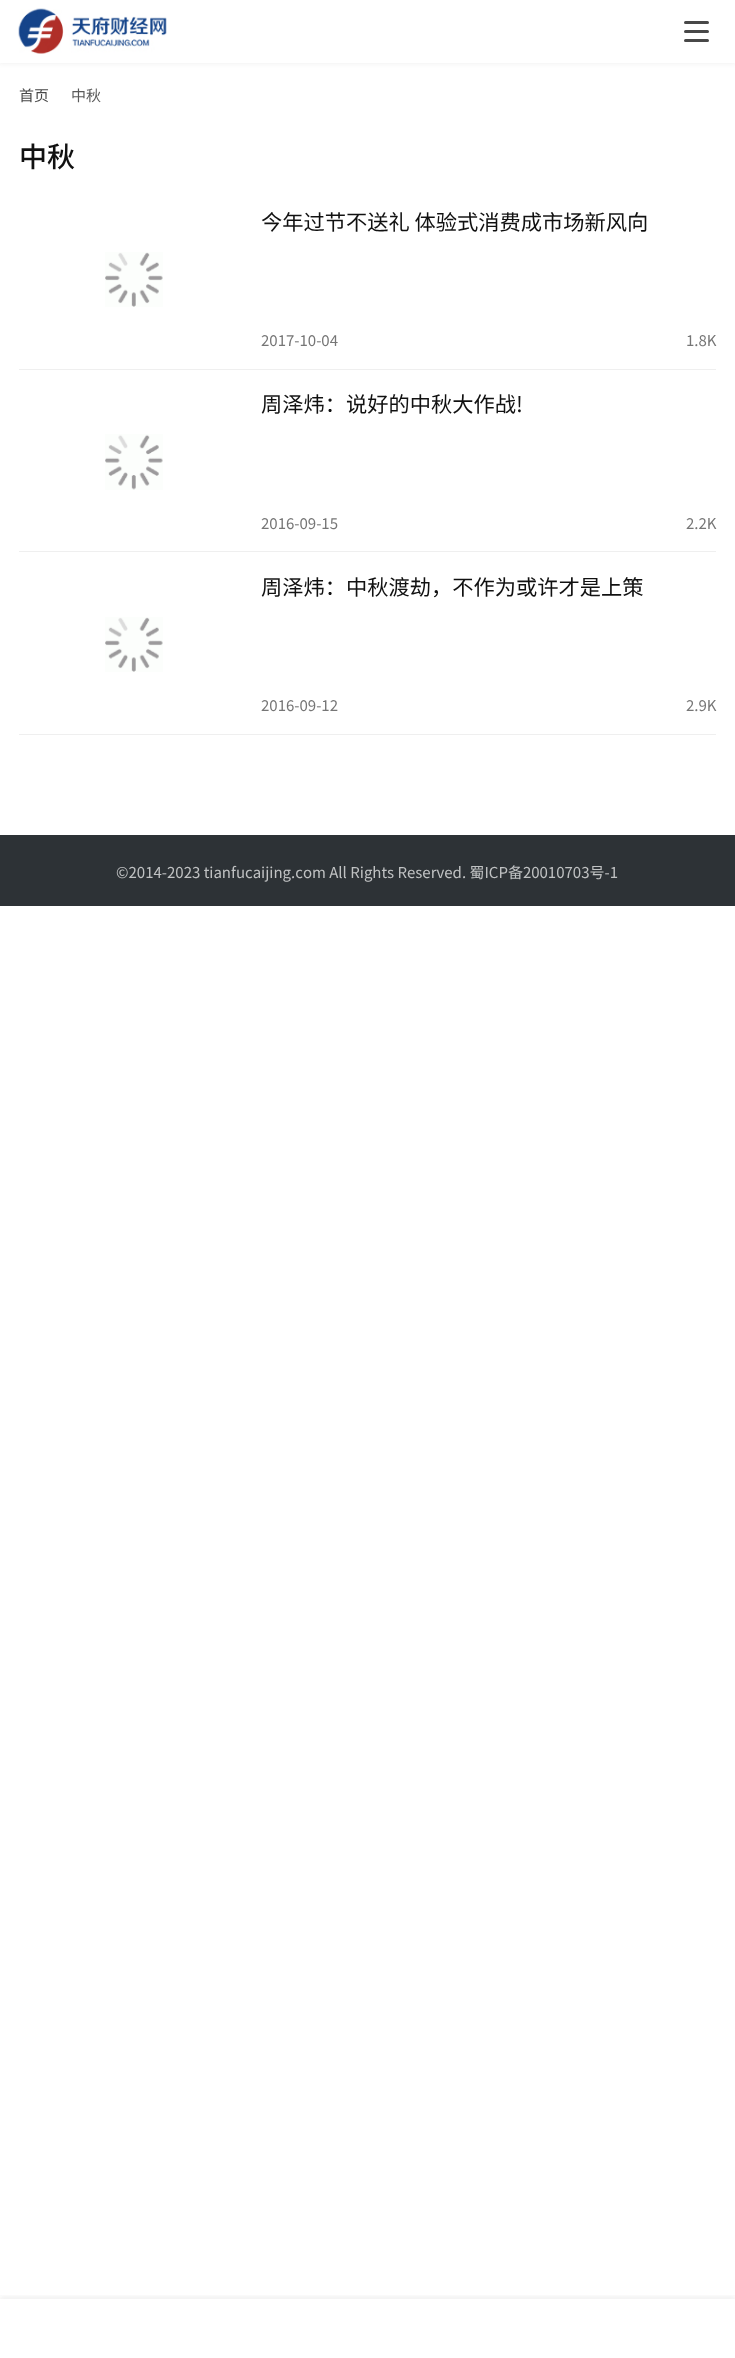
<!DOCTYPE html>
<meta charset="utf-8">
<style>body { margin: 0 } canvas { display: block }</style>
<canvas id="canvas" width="735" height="2358"></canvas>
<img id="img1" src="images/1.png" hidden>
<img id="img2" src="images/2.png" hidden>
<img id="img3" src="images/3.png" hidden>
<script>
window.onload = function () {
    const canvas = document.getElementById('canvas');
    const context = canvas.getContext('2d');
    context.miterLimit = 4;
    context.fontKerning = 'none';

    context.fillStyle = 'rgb(255, 255, 255)';
    context.fillRect(0, 0, 735, 2358);
    context.fillStyle = 'rgba(26, 26, 26, 0.06)';
    context.filter = 'blur(2px)';
    context.beginPath();
    context.rect(-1, -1, 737, 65);
    context.fill();
    context.filter = 'none';
    context.fillStyle = 'rgb(255, 255, 255)';
    context.fillRect(0, 0, 735, 63);
    context.drawImage(document.getElementById('img1'), 18, 8, 149, 46);
    context.fillStyle = 'rgb(72, 72, 72)';
    context.beginPath();
    context.roundRect(684, 21, 25, 3, 1.5);
    context.fill();
    context.beginPath();
    context.roundRect(684, 30, 25, 3, 1.5);
    context.fill();
    context.beginPath();
    context.roundRect(684, 39, 25, 3, 1.5);
    context.fill();
    context.fillStyle = 'rgb(239, 239, 239)';
    context.fillRect(19, 369, 697, 1);
    context.drawImage(document.getElementById('img2'), 105, 252, 58, 55);
    context.fillRect(19, 551, 697, 1);
    context.drawImage(document.getElementById('img3'), 105, 434, 58, 56);
    context.fillRect(19, 734, 697, 1);
    context.drawImage(document.getElementById('img2'), 105, 617, 58, 55);
    context.fillStyle = 'rgb(45, 50, 54)';
    context.fillRect(0, 835, 735, 71);
    context.save();
    context.beginPath();
    context.rect(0, 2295, 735, 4);
    context.clip();
    context.fillStyle = 'rgba(26, 26, 26, 0.06)';
    context.filter = 'blur(2px)';
    context.beginPath();
    context.rect(0, 2296, 735, 60);
    context.fill();
    context.filter = 'none';
    context.restore();
    context.font = '15px Noto Sans CJK SC';
    context.fillStyle = 'rgb(72, 72, 72)';
    context.fillText('首页', 19, 101);
    context.fillStyle = 'rgb(90, 90, 90)';
    context.fillText('中秋', 71, 101);
    context.font = '500 28px Noto Sans CJK SC';
    context.fillStyle = 'rgb(17, 17, 17)';
    context.fillText('中秋', 19, 167);
    context.font = '21.25px Noto Sans CJK SC';
    context.fillText('今年过节不送礼 体验式消费成市场新风向', 261, 230);
    context.font = '15px Noto Sans CJK SC';
    context.fillStyle = 'rgb(118, 118, 118)';
    context.fillText('2017-10-04', 261, 346);
    context.fillText('1.8K', 686, 346);
    context.font = '21.25px Noto Sans CJK SC';
    context.fillStyle = 'rgb(17, 17, 17)';
    context.fillText('周泽炜：说好的中秋大作战!', 261, 412);
    context.font = '15px Noto Sans CJK SC';
    context.fillStyle = 'rgb(118, 118, 118)';
    context.fillText('2016-09-15', 261, 529);
    context.fillText('2.2K', 686, 529);
    context.font = '21.25px Noto Sans CJK SC';
    context.fillStyle = 'rgb(17, 17, 17)';
    context.fillText('周泽炜：中秋渡劫，不作为或许才是上策', 261, 595);
    context.font = '15px Noto Sans CJK SC';
    context.fillStyle = 'rgb(118, 118, 118)';
    context.fillText('2016-09-12', 261, 711);
    context.fillText('2.9K', 686, 711);
    context.fillStyle = 'rgb(192, 194, 195)';
    context.fillText('©2014-2023 tianfucaijing.com All Rights Reserved. 蜀ICP备20010703号-1', 116, 878);
};
</script>
